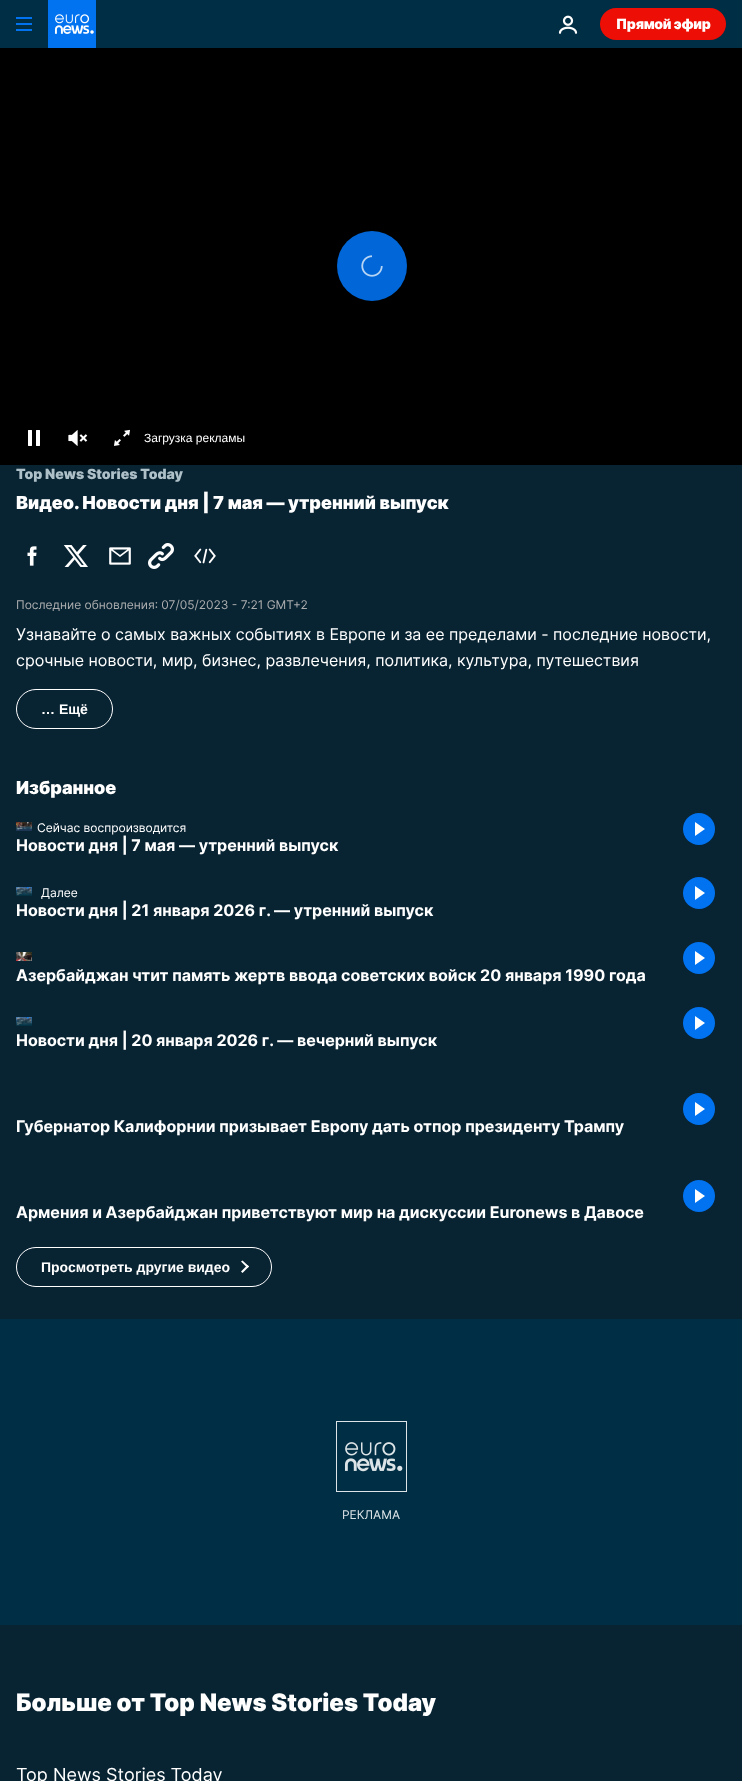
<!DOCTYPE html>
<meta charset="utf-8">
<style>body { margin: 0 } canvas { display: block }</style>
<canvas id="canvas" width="742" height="1781"></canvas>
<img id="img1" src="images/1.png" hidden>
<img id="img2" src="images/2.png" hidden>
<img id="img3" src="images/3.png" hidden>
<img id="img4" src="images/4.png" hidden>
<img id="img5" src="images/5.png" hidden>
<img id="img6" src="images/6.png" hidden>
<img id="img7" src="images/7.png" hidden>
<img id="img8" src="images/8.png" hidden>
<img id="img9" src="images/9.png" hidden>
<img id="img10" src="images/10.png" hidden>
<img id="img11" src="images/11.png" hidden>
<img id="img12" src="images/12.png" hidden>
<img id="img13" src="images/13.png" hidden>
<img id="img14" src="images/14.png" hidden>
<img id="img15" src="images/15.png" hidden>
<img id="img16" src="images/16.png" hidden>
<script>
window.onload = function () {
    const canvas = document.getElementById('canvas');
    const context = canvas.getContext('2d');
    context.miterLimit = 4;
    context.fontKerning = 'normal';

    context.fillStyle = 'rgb(8, 35, 50)';
    context.fillRect(0, 0, 742, 1781);
    context.fillStyle = 'rgb(0, 46, 68)';
    context.fillRect(0, 0, 742, 48);
    context.fillStyle = 'rgb(1, 114, 240)';
    context.fillRect(16, 17, 16, 2);
    context.fillRect(16, 23, 16, 2);
    context.fillRect(16, 29, 16, 2);
    context.drawImage(document.getElementById('img1'), 48, 0, 48, 48);
    context.drawImage(document.getElementById('img2'), 558, 15, 20, 19);
    context.fillStyle = 'rgb(237, 14, 5)';
    context.beginPath();
    context.roundRect(600, 8, 126, 32, 16);
    context.fill();
    context.fillStyle = 'rgb(0, 0, 0)';
    context.fillRect(0, 48, 742, 417);
    context.fillStyle = 'rgb(1, 103, 216)';
    context.beginPath();
    context.arc(372, 266, 35, 0, 2 * Math.PI);
    context.fill();
    context.drawImage(document.getElementById('img3'), 361, 255, 22, 22);
    context.drawImage(document.getElementById('img4'), 28, 430, 12, 16);
    context.drawImage(document.getElementById('img5'), 68, 430, 20, 16);
    context.drawImage(document.getElementById('img6'), 114, 429, 16, 17);
    context.drawImage(document.getElementById('img7'), 27, 546, 10, 20);
    context.drawImage(document.getElementById('img8'), 63, 545, 25, 22);
    context.drawImage(document.getElementById('img9'), 109, 547, 22, 18);
    context.drawImage(document.getElementById('img10'), 148, 543, 26, 26);
    context.drawImage(document.getElementById('img11'), 194, 548, 22, 16);
    context.beginPath();
    context.roundRect(16.5, 689.5, 96, 39, 19.5);
    context.strokeStyle = 'rgb(255, 255, 255)';
    context.stroke();
    context.drawImage(document.getElementById('img12'), 16, 822, 16, 9);
    context.fillStyle = 'rgb(1, 114, 240)';
    context.beginPath();
    context.arc(699, 829, 16, 0, 2 * Math.PI);
    context.fill();
    context.fillStyle = 'rgb(255, 255, 255)';
    context.beginPath();
    context.moveTo(695, 836);
    context.lineTo(695, 822);
    context.lineTo(705, 829);
    context.closePath();
    context.fill();
    context.drawImage(document.getElementById('img13'), 16, 887, 16, 9);
    context.fillStyle = 'rgb(1, 114, 240)';
    context.beginPath();
    context.arc(699, 893, 16, 0, 2 * Math.PI);
    context.fill();
    context.fillStyle = 'rgb(255, 255, 255)';
    context.beginPath();
    context.moveTo(695, 900);
    context.lineTo(695, 886);
    context.lineTo(705, 893);
    context.closePath();
    context.fill();
    context.drawImage(document.getElementById('img14'), 16, 952, 16, 9);
    context.fillStyle = 'rgb(1, 114, 240)';
    context.beginPath();
    context.arc(699, 958, 16, 0, 2 * Math.PI);
    context.fill();
    context.fillStyle = 'rgb(255, 255, 255)';
    context.beginPath();
    context.moveTo(695, 965);
    context.lineTo(695, 951);
    context.lineTo(705, 958);
    context.closePath();
    context.fill();
    context.drawImage(document.getElementById('img15'), 16, 1017, 16, 9);
    context.fillStyle = 'rgb(1, 114, 240)';
    context.beginPath();
    context.arc(699, 1023, 16, 0, 2 * Math.PI);
    context.fill();
    context.fillStyle = 'rgb(255, 255, 255)';
    context.beginPath();
    context.moveTo(695, 1030);
    context.lineTo(695, 1016);
    context.lineTo(705, 1023);
    context.closePath();
    context.fill();
    context.fillStyle = 'rgb(1, 114, 240)';
    context.beginPath();
    context.arc(699, 1109, 16, 0, 2 * Math.PI);
    context.fill();
    context.fillStyle = 'rgb(255, 255, 255)';
    context.beginPath();
    context.moveTo(695, 1116);
    context.lineTo(695, 1102);
    context.lineTo(705, 1109);
    context.closePath();
    context.fill();
    context.fillStyle = 'rgb(1, 114, 240)';
    context.beginPath();
    context.arc(699, 1196, 16, 0, 2 * Math.PI);
    context.fill();
    context.fillStyle = 'rgb(255, 255, 255)';
    context.beginPath();
    context.moveTo(695, 1203);
    context.lineTo(695, 1189);
    context.lineTo(705, 1196);
    context.closePath();
    context.fill();
    context.beginPath();
    context.roundRect(16.5, 1247.5, 255, 39, 19.5);
    context.stroke();
    context.beginPath();
    context.moveTo(242.5, 1260.5);
    context.lineTo(249, 1266.5);
    context.lineTo(247.5, 1268);
    context.lineTo(241, 1261.5);
    context.closePath();
    context.fill();
    context.beginPath();
    context.moveTo(247.5, 1265);
    context.lineTo(249, 1266.5);
    context.lineTo(242.5, 1273);
    context.lineTo(241, 1271.5);
    context.closePath();
    context.fill();
    context.fillStyle = 'rgb(0, 46, 68)';
    context.fillRect(0, 1319, 742, 306);
    context.drawImage(document.getElementById('img16'), 336, 1421, 71, 71);
    context.letterSpacing = '-0.25px';
    context.font = '900 14px Inter';
    context.fillStyle = 'rgb(255, 255, 255)';
    context.fillText('Прямой эфир', 616, 29);
    context.letterSpacing = '0px';
    context.font = '12px Liberation Sans';
    context.fillText('Загрузка рекламы', 144, 442);
    context.font = '900 14px Inter';
    context.fillStyle = 'rgb(174, 193, 201)';
    context.fillText('Top News Stories Today', 16, 479);
    context.font = '900 18px Inter';
    context.fillStyle = 'rgb(255, 255, 255)';
    context.fillText('Видео. Новости дня | 7 мая — утренний выпуск', 16, 509);
    context.font = '12px Inter';
    context.fillStyle = 'rgb(171, 173, 174)';
    context.fillText('Последние обновления: 07/05/2023 - 7:21 GMT+2', 16, 609);
    context.font = '16px Inter';
    context.fillStyle = 'rgb(255, 255, 255)';
    context.fillText('Узнавайте о самых важных событиях в Европе и за ее пределами - последние новости,', 16, 640);
    context.fillText('срочные новости, мир, бизнес, развлечения, политика, культура, путешествия', 16, 666);
    context.font = 'bold 14px Liberation Sans';
    context.fillText('… Ещё', 41, 714);
    context.font = '900 18px Inter';
    context.fillText('Избранное', 16, 794);
    context.font = '12px Inter';
    context.fillText('Сейчас воспроизводится', 37, 832);
    context.font = 'bold 16px Inter';
    context.fillText('Новости дня | 7 мая — утренний выпуск', 16, 851);
    context.font = '12px Inter';
    context.fillText('Далее', 41, 897);
    context.font = 'bold 16px Inter';
    context.fillText('Новости дня | 21 января 2026 г. — утренний выпуск', 16, 916);
    context.fillText('Азербайджан чтит память жертв ввода советских войск 20 января 1990 года', 16, 981);
    context.fillText('Новости дня | 20 января 2026 г. — вечерний выпуск', 16, 1046);
    context.fillText('Губернатор Калифорнии призывает Европу дать отпор президенту Трампу', 16, 1132);
    context.fillText('Армения и Азербайджан приветствуют мир на дискуссии Euronews в Давосе', 16, 1218);
    context.font = 'bold 14px Liberation Sans';
    context.fillText('Просмотреть другие видео', 41, 1272);
    context.font = '12px Inter';
    context.fillStyle = 'rgb(220, 228, 231)';
    context.fillText('РЕКЛАМА', 342, 1519);
    context.font = '900 24px Inter';
    context.fillStyle = 'rgb(255, 255, 255)';
    context.fillText('Больше от Top News Stories Today', 16, 1711);
    context.font = '18px Inter';
    context.fillText('Top News Stories Today', 16, 1781);
};
</script>
